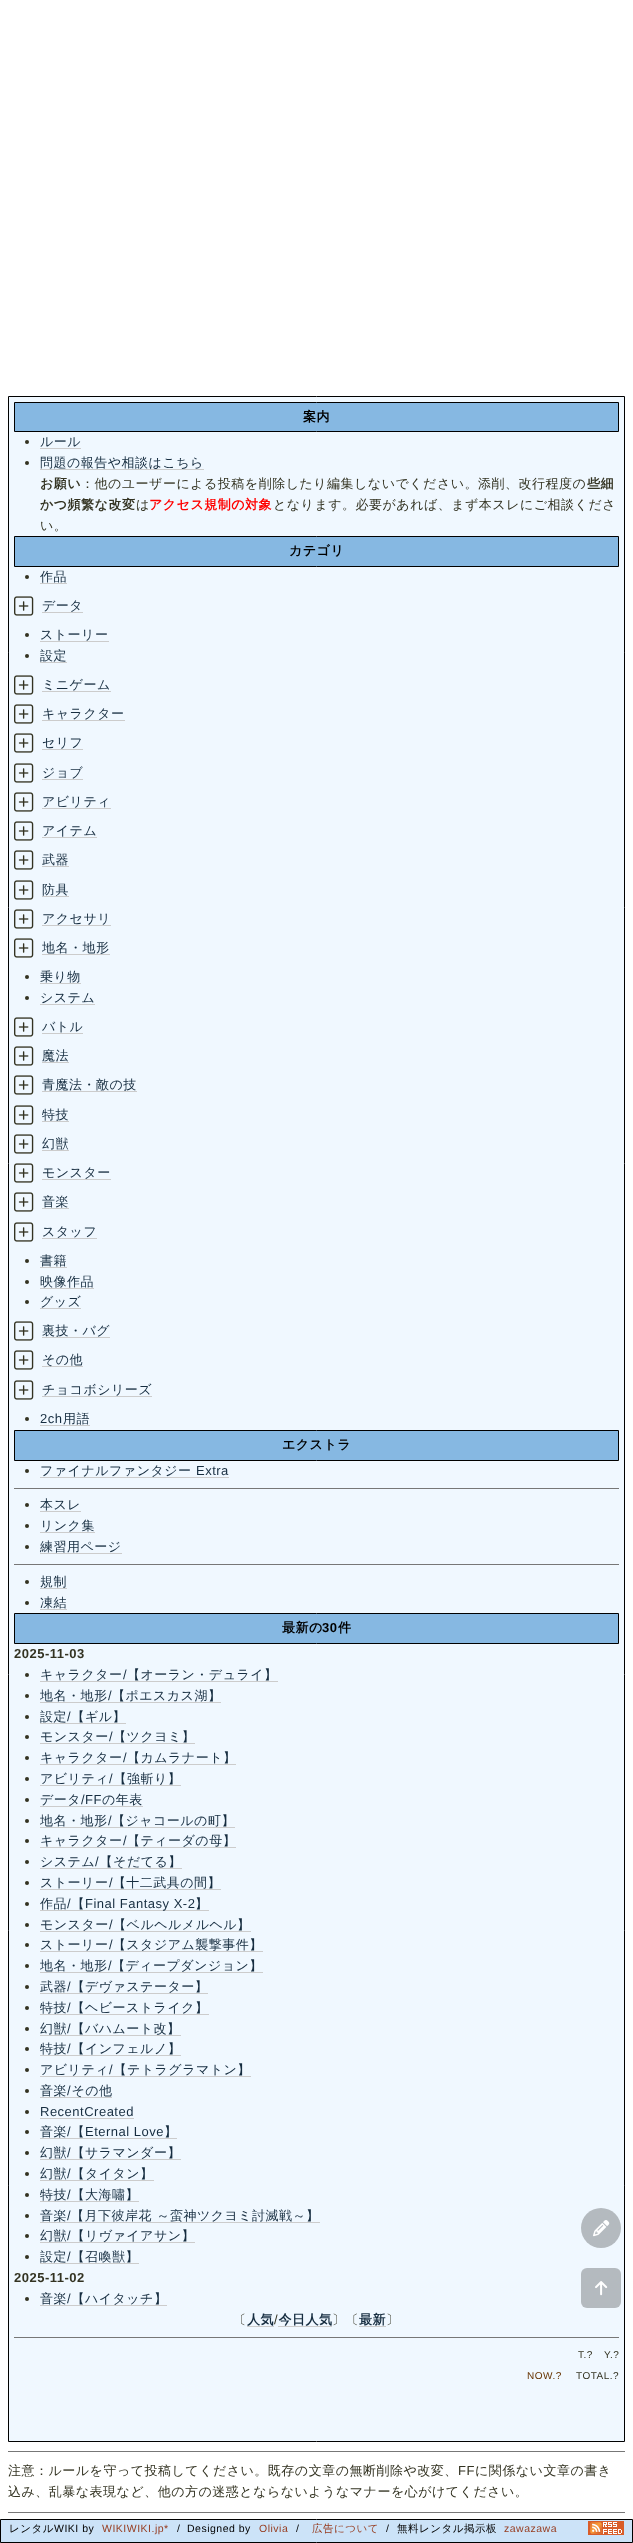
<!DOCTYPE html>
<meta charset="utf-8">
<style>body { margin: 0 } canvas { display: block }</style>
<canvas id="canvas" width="633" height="2543"></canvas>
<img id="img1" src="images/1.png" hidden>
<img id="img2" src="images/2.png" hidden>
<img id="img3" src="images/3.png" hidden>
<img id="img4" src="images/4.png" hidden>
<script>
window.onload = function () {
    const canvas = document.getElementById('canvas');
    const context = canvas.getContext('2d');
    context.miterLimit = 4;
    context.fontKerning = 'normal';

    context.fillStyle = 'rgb(255, 255, 255)';
    context.fillRect(0, 0, 633, 2543);
    context.fillStyle = 'rgb(240, 248, 255)';
    context.beginPath();
    context.rect(8.5, 396.5, 616, 2045);
    context.fill();
    context.strokeStyle = 'rgb(0, 0, 0)';
    context.stroke();
    context.fillStyle = 'rgb(134, 184, 226)';
    context.beginPath();
    context.rect(14.5, 402.5, 604, 29);
    context.fill();
    context.stroke();
    context.fillStyle = 'rgb(51, 51, 34)';
    context.beginPath();
    context.arc(27, 442, 2, 0, 2 * Math.PI);
    context.fill();
    context.fillStyle = 'rgb(204, 204, 204)';
    context.fillRect(40, 448, 41, 1);
    context.fillStyle = 'rgb(51, 51, 34)';
    context.beginPath();
    context.arc(27, 463, 2, 0, 2 * Math.PI);
    context.fill();
    context.fillStyle = 'rgb(204, 204, 204)';
    context.fillRect(40, 469, 164, 1);
    context.fillStyle = 'rgb(134, 184, 226)';
    context.beginPath();
    context.rect(14.5, 536.5, 604, 30);
    context.fill();
    context.stroke();
    context.fillStyle = 'rgb(51, 51, 34)';
    context.beginPath();
    context.arc(27, 577, 2, 0, 2 * Math.PI);
    context.fill();
    context.fillStyle = 'rgb(204, 204, 204)';
    context.fillRect(40, 583, 27, 1);
    context.drawImage(document.getElementById('img1'), 14, 596, 20, 20);
    context.fillRect(42, 612, 41, 1);
    context.fillStyle = 'rgb(51, 51, 34)';
    context.beginPath();
    context.arc(27, 635, 2, 0, 2 * Math.PI);
    context.fill();
    context.fillStyle = 'rgb(204, 204, 204)';
    context.fillRect(40, 641, 69, 1);
    context.fillStyle = 'rgb(51, 51, 34)';
    context.beginPath();
    context.arc(27, 656, 2, 0, 2 * Math.PI);
    context.fill();
    context.fillStyle = 'rgb(204, 204, 204)';
    context.fillRect(40, 662, 27, 1);
    context.drawImage(document.getElementById('img1'), 14, 675, 20, 20);
    context.fillRect(42, 691, 69, 1);
    context.drawImage(document.getElementById('img1'), 14, 704, 20, 20);
    context.fillRect(42, 720, 83, 1);
    context.drawImage(document.getElementById('img1'), 14, 733, 20, 20);
    context.fillRect(42, 749, 41, 1);
    context.drawImage(document.getElementById('img1'), 14, 763, 20, 20);
    context.fillRect(42, 779, 41, 1);
    context.drawImage(document.getElementById('img1'), 14, 792, 20, 20);
    context.fillRect(42, 808, 69, 1);
    context.drawImage(document.getElementById('img1'), 14, 821, 20, 20);
    context.fillRect(42, 837, 55, 1);
    context.drawImage(document.getElementById('img1'), 14, 850, 20, 20);
    context.fillRect(42, 866, 27, 1);
    context.drawImage(document.getElementById('img1'), 14, 880, 20, 20);
    context.fillRect(42, 896, 27, 1);
    context.drawImage(document.getElementById('img1'), 14, 909, 20, 20);
    context.fillRect(42, 925, 69, 1);
    context.drawImage(document.getElementById('img1'), 14, 938, 20, 20);
    context.fillRect(42, 954, 68, 1);
    context.fillStyle = 'rgb(51, 51, 34)';
    context.beginPath();
    context.arc(27, 977, 2, 0, 2 * Math.PI);
    context.fill();
    context.fillStyle = 'rgb(204, 204, 204)';
    context.fillRect(40, 983, 41, 1);
    context.fillStyle = 'rgb(51, 51, 34)';
    context.beginPath();
    context.arc(27, 998, 2, 0, 2 * Math.PI);
    context.fill();
    context.fillStyle = 'rgb(204, 204, 204)';
    context.fillRect(40, 1004, 55, 1);
    context.drawImage(document.getElementById('img1'), 14, 1017, 20, 20);
    context.fillRect(42, 1033, 41, 1);
    context.drawImage(document.getElementById('img1'), 14, 1046, 20, 20);
    context.fillRect(42, 1062, 27, 1);
    context.drawImage(document.getElementById('img1'), 14, 1075, 20, 20);
    context.fillRect(42, 1091, 95, 1);
    context.drawImage(document.getElementById('img1'), 14, 1105, 20, 20);
    context.fillRect(42, 1121, 27, 1);
    context.drawImage(document.getElementById('img1'), 14, 1134, 20, 20);
    context.fillRect(42, 1150, 27, 1);
    context.drawImage(document.getElementById('img1'), 14, 1163, 20, 20);
    context.fillRect(42, 1179, 69, 1);
    context.drawImage(document.getElementById('img1'), 14, 1192, 20, 20);
    context.fillRect(42, 1208, 27, 1);
    context.drawImage(document.getElementById('img1'), 14, 1222, 20, 20);
    context.fillRect(42, 1238, 55, 1);
    context.fillStyle = 'rgb(51, 51, 34)';
    context.beginPath();
    context.arc(27, 1261, 2, 0, 2 * Math.PI);
    context.fill();
    context.fillStyle = 'rgb(204, 204, 204)';
    context.fillRect(40, 1267, 27, 1);
    context.fillStyle = 'rgb(51, 51, 34)';
    context.beginPath();
    context.arc(27, 1282, 2, 0, 2 * Math.PI);
    context.fill();
    context.fillStyle = 'rgb(204, 204, 204)';
    context.fillRect(40, 1288, 54, 1);
    context.fillStyle = 'rgb(51, 51, 34)';
    context.beginPath();
    context.arc(27, 1302, 2, 0, 2 * Math.PI);
    context.fill();
    context.fillStyle = 'rgb(204, 204, 204)';
    context.fillRect(40, 1308, 41, 1);
    context.drawImage(document.getElementById('img1'), 14, 1321, 20, 20);
    context.fillRect(42, 1337, 68, 1);
    context.drawImage(document.getElementById('img1'), 14, 1350, 20, 20);
    context.fillRect(42, 1366, 41, 1);
    context.drawImage(document.getElementById('img1'), 14, 1380, 20, 20);
    context.fillRect(42, 1396, 110, 1);
    context.fillStyle = 'rgb(51, 51, 34)';
    context.beginPath();
    context.arc(27, 1419, 2, 0, 2 * Math.PI);
    context.fill();
    context.fillStyle = 'rgb(204, 204, 204)';
    context.fillRect(40, 1425, 50, 1);
    context.fillStyle = 'rgb(134, 184, 226)';
    context.beginPath();
    context.rect(14.5, 1430.5, 604, 30);
    context.fill();
    context.stroke();
    context.fillStyle = 'rgb(51, 51, 34)';
    context.beginPath();
    context.arc(27, 1471, 2, 0, 2 * Math.PI);
    context.fill();
    context.fillStyle = 'rgb(204, 204, 204)';
    context.fillRect(40, 1477, 189, 1);
    context.fillStyle = 'rgb(119, 119, 119)';
    context.fillRect(14, 1488, 605, 1);
    context.fillStyle = 'rgb(51, 51, 34)';
    context.beginPath();
    context.arc(27, 1505, 2, 0, 2 * Math.PI);
    context.fill();
    context.fillStyle = 'rgb(204, 204, 204)';
    context.fillRect(40, 1511, 41, 1);
    context.fillStyle = 'rgb(51, 51, 34)';
    context.beginPath();
    context.arc(27, 1526, 2, 0, 2 * Math.PI);
    context.fill();
    context.fillStyle = 'rgb(204, 204, 204)';
    context.fillRect(40, 1532, 55, 1);
    context.fillStyle = 'rgb(51, 51, 34)';
    context.beginPath();
    context.arc(27, 1547, 2, 0, 2 * Math.PI);
    context.fill();
    context.fillStyle = 'rgb(204, 204, 204)';
    context.fillRect(40, 1553, 82, 1);
    context.fillStyle = 'rgb(119, 119, 119)';
    context.fillRect(14, 1564, 605, 1);
    context.fillStyle = 'rgb(51, 51, 34)';
    context.beginPath();
    context.arc(27, 1582, 2, 0, 2 * Math.PI);
    context.fill();
    context.fillStyle = 'rgb(204, 204, 204)';
    context.fillRect(40, 1588, 27, 1);
    context.fillStyle = 'rgb(51, 51, 34)';
    context.beginPath();
    context.arc(27, 1603, 2, 0, 2 * Math.PI);
    context.fill();
    context.fillStyle = 'rgb(204, 204, 204)';
    context.fillRect(40, 1609, 27, 1);
    context.fillStyle = 'rgb(134, 184, 226)';
    context.beginPath();
    context.rect(14.5, 1613.5, 604, 30);
    context.fill();
    context.stroke();
    context.fillStyle = 'rgb(204, 204, 204)';
    context.fillRect(40, 1681, 238, 1);
    context.fillStyle = 'rgb(51, 51, 34)';
    context.beginPath();
    context.arc(27, 1675, 2, 0, 2 * Math.PI);
    context.fill();
    context.fillStyle = 'rgb(204, 204, 204)';
    context.fillRect(40, 1702, 181, 1);
    context.fillStyle = 'rgb(51, 51, 34)';
    context.beginPath();
    context.arc(27, 1696, 2, 0, 2 * Math.PI);
    context.fill();
    context.fillStyle = 'rgb(204, 204, 204)';
    context.fillRect(40, 1723, 86, 1);
    context.fillStyle = 'rgb(51, 51, 34)';
    context.beginPath();
    context.arc(27, 1717, 2, 0, 2 * Math.PI);
    context.fill();
    context.fillStyle = 'rgb(204, 204, 204)';
    context.fillRect(40, 1743, 155, 1);
    context.fillStyle = 'rgb(51, 51, 34)';
    context.beginPath();
    context.arc(27, 1737, 2, 0, 2 * Math.PI);
    context.fill();
    context.fillStyle = 'rgb(204, 204, 204)';
    context.fillRect(40, 1764, 196, 1);
    context.fillStyle = 'rgb(51, 51, 34)';
    context.beginPath();
    context.arc(27, 1758, 2, 0, 2 * Math.PI);
    context.fill();
    context.fillStyle = 'rgb(204, 204, 204)';
    context.fillRect(40, 1785, 141, 1);
    context.fillStyle = 'rgb(51, 51, 34)';
    context.beginPath();
    context.arc(27, 1779, 2, 0, 2 * Math.PI);
    context.fill();
    context.beginPath();
    context.arc(27, 1800, 2, 0, 2 * Math.PI);
    context.fill();
    context.fillStyle = 'rgb(204, 204, 204)';
    context.fillRect(40, 1806, 103, 1);
    context.fillRect(40, 1827, 195, 1);
    context.fillStyle = 'rgb(51, 51, 34)';
    context.beginPath();
    context.arc(27, 1821, 2, 0, 2 * Math.PI);
    context.fill();
    context.fillStyle = 'rgb(204, 204, 204)';
    context.fillRect(40, 1847, 196, 1);
    context.fillStyle = 'rgb(51, 51, 34)';
    context.beginPath();
    context.arc(27, 1841, 2, 0, 2 * Math.PI);
    context.fill();
    context.fillStyle = 'rgb(204, 204, 204)';
    context.fillRect(40, 1868, 142, 1);
    context.fillStyle = 'rgb(51, 51, 34)';
    context.beginPath();
    context.arc(27, 1862, 2, 0, 2 * Math.PI);
    context.fill();
    context.fillStyle = 'rgb(204, 204, 204)';
    context.fillRect(40, 1889, 181, 1);
    context.fillStyle = 'rgb(51, 51, 34)';
    context.beginPath();
    context.arc(27, 1883, 2, 0, 2 * Math.PI);
    context.fill();
    context.beginPath();
    context.arc(27, 1904, 2, 0, 2 * Math.PI);
    context.fill();
    context.fillStyle = 'rgb(204, 204, 204)';
    context.fillRect(40, 1910, 169, 1);
    context.fillRect(40, 1931, 211, 1);
    context.fillStyle = 'rgb(51, 51, 34)';
    context.beginPath();
    context.arc(27, 1925, 2, 0, 2 * Math.PI);
    context.fill();
    context.beginPath();
    context.arc(27, 1945, 2, 0, 2 * Math.PI);
    context.fill();
    context.fillStyle = 'rgb(204, 204, 204)';
    context.fillRect(40, 1951, 223, 1);
    context.fillRect(40, 1972, 223, 1);
    context.fillStyle = 'rgb(51, 51, 34)';
    context.beginPath();
    context.arc(27, 1966, 2, 0, 2 * Math.PI);
    context.fill();
    context.fillStyle = 'rgb(204, 204, 204)';
    context.fillRect(40, 1993, 168, 1);
    context.fillStyle = 'rgb(51, 51, 34)';
    context.beginPath();
    context.arc(27, 1987, 2, 0, 2 * Math.PI);
    context.fill();
    context.fillStyle = 'rgb(204, 204, 204)';
    context.fillRect(40, 2014, 169, 1);
    context.fillStyle = 'rgb(51, 51, 34)';
    context.beginPath();
    context.arc(27, 2008, 2, 0, 2 * Math.PI);
    context.fill();
    context.fillStyle = 'rgb(204, 204, 204)';
    context.fillRect(40, 2035, 141, 1);
    context.fillStyle = 'rgb(51, 51, 34)';
    context.beginPath();
    context.arc(27, 2029, 2, 0, 2 * Math.PI);
    context.fill();
    context.fillStyle = 'rgb(204, 204, 204)';
    context.fillRect(40, 2055, 141, 1);
    context.fillStyle = 'rgb(51, 51, 34)';
    context.beginPath();
    context.arc(27, 2049, 2, 0, 2 * Math.PI);
    context.fill();
    context.fillStyle = 'rgb(204, 204, 204)';
    context.fillRect(40, 2076, 211, 1);
    context.fillStyle = 'rgb(51, 51, 34)';
    context.beginPath();
    context.arc(27, 2070, 2, 0, 2 * Math.PI);
    context.fill();
    context.fillStyle = 'rgb(204, 204, 204)';
    context.fillRect(40, 2097, 72, 1);
    context.fillStyle = 'rgb(51, 51, 34)';
    context.beginPath();
    context.arc(27, 2091, 2, 0, 2 * Math.PI);
    context.fill();
    context.beginPath();
    context.arc(27, 2112, 2, 0, 2 * Math.PI);
    context.fill();
    context.fillStyle = 'rgb(204, 204, 204)';
    context.fillRect(40, 2118, 94, 1);
    context.fillRect(40, 2138, 137, 1);
    context.fillStyle = 'rgb(51, 51, 34)';
    context.beginPath();
    context.arc(27, 2132, 2, 0, 2 * Math.PI);
    context.fill();
    context.fillStyle = 'rgb(204, 204, 204)';
    context.fillRect(40, 2159, 141, 1);
    context.fillStyle = 'rgb(51, 51, 34)';
    context.beginPath();
    context.arc(27, 2153, 2, 0, 2 * Math.PI);
    context.fill();
    context.fillStyle = 'rgb(204, 204, 204)';
    context.fillRect(40, 2180, 114, 1);
    context.fillStyle = 'rgb(51, 51, 34)';
    context.beginPath();
    context.arc(27, 2174, 2, 0, 2 * Math.PI);
    context.fill();
    context.fillStyle = 'rgb(204, 204, 204)';
    context.fillRect(40, 2201, 99, 1);
    context.fillStyle = 'rgb(51, 51, 34)';
    context.beginPath();
    context.arc(27, 2195, 2, 0, 2 * Math.PI);
    context.fill();
    context.beginPath();
    context.arc(27, 2216, 2, 0, 2 * Math.PI);
    context.fill();
    context.fillStyle = 'rgb(204, 204, 204)';
    context.fillRect(40, 2222, 280, 1);
    context.fillRect(40, 2242, 155, 1);
    context.fillStyle = 'rgb(51, 51, 34)';
    context.beginPath();
    context.arc(27, 2236, 2, 0, 2 * Math.PI);
    context.fill();
    context.fillStyle = 'rgb(204, 204, 204)';
    context.fillRect(40, 2263, 99, 1);
    context.fillStyle = 'rgb(51, 51, 34)';
    context.beginPath();
    context.arc(27, 2257, 2, 0, 2 * Math.PI);
    context.fill();
    context.fillStyle = 'rgb(204, 204, 204)';
    context.fillRect(40, 2305, 127, 1);
    context.fillStyle = 'rgb(51, 51, 34)';
    context.beginPath();
    context.arc(27, 2299, 2, 0, 2 * Math.PI);
    context.fill();
    context.fillStyle = 'rgb(204, 204, 204)';
    context.fillRect(247, 2326, 27, 1);
    context.fillRect(359, 2326, 27, 1);
    context.fillRect(278, 2326, 54, 1);
    context.fillStyle = 'rgb(119, 119, 119)';
    context.fillRect(14, 2337, 605, 1);
    context.fillStyle = 'rgb(180, 186, 191)';
    context.beginPath();
    context.arc(601, 2228, 20, 0, 2 * Math.PI);
    context.fill();
    context.drawImage(document.getElementById('img2'), 593, 2220, 17, 17);
    context.beginPath();
    context.roundRect(581, 2268, 40, 40, 6);
    context.fill();
    context.drawImage(document.getElementById('img3'), 595, 2281, 13, 15);
    context.fillStyle = 'rgb(119, 119, 119)';
    context.fillRect(8, 2451, 617, 1);
    context.fillRect(8, 2512, 617, 1);
    context.fillStyle = 'rgb(204, 227, 248)';
    context.beginPath();
    context.rect(0.5, 2519.5, 632, 23);
    context.fill();
    context.stroke();
    context.drawImage(document.getElementById('img4'), 588, 2521, 36, 14);
    context.letterSpacing = '0.5px';
    context.font = 'bold 13px WenQuanYi Zen Hei';
    context.fillStyle = 'rgb(0, 0, 0)';
    context.fillText('案内', 303, 421);
    context.font = '500 13px WenQuanYi Zen Hei';
    context.fillStyle = 'rgb(22, 45, 64)';
    context.fillText('ルール', 40, 446);
    context.fillText('問題の報告や相談はこちら', 40, 467);
    context.font = 'bold 13px WenQuanYi Zen Hei';
    context.fillStyle = 'rgb(51, 51, 34)';
    context.fillText('お願い', 40, 488);
    context.font = '500 13px WenQuanYi Zen Hei';
    context.fillText('：他のユーザーによる投稿を削除したり編集しないでください。添削、改行程度の', 81, 488);
    context.font = 'bold 13px WenQuanYi Zen Hei';
    context.fillText('些細', 587, 488);
    context.fillText('かつ頻繁な改変', 40, 509);
    context.font = '500 13px WenQuanYi Zen Hei';
    context.fillText('は', 136, 509);
    context.font = 'bold 13px WenQuanYi Zen Hei';
    context.fillStyle = 'rgb(255, 0, 0)';
    context.fillText('アクセス規制の対象', 149, 509);
    context.font = '500 13px WenQuanYi Zen Hei';
    context.fillStyle = 'rgb(51, 51, 34)';
    context.fillText('となります。必要があれば、まず本スレにご相談くださ', 273, 509);
    context.fillText('い。', 40, 530);
    context.font = 'bold 13px WenQuanYi Zen Hei';
    context.fillStyle = 'rgb(0, 0, 0)';
    context.fillText('カテゴリ', 289, 555);
    context.font = '500 13px WenQuanYi Zen Hei';
    context.fillStyle = 'rgb(22, 45, 64)';
    context.fillText('作品', 40, 581);
    context.fillText('データ', 42, 610);
    context.fillText('ストーリー', 40, 639);
    context.fillText('設定', 40, 660);
    context.fillText('ミニゲーム', 42, 689);
    context.fillText('キャラクター', 42, 718);
    context.fillText('セリフ', 42, 747);
    context.fillText('ジョブ', 42, 777);
    context.fillText('アビリティ', 42, 806);
    context.fillText('アイテム', 42, 835);
    context.fillText('武器', 42, 864);
    context.fillText('防具', 42, 894);
    context.fillText('アクセサリ', 42, 923);
    context.fillText('地名・地形', 42, 952);
    context.fillText('乗り物', 40, 981);
    context.fillText('システム', 40, 1002);
    context.fillText('バトル', 42, 1031);
    context.fillText('魔法', 42, 1060);
    context.fillText('青魔法・敵の技', 42, 1089);
    context.fillText('特技', 42, 1119);
    context.fillText('幻獣', 42, 1148);
    context.fillText('モンスター', 42, 1177);
    context.fillText('音楽', 42, 1206);
    context.fillText('スタッフ', 42, 1236);
    context.fillText('書籍', 40, 1265);
    context.fillText('映像作品', 40, 1286);
    context.fillText('グッズ', 40, 1306);
    context.fillText('裏技・バグ', 42, 1335);
    context.fillText('その他', 42, 1364);
    context.fillText('チョコボシリーズ', 42, 1394);
    context.font = '13px Liberation Sans';
    context.fillText('2ch', 40, 1423);
    context.font = '500 13px WenQuanYi Zen Hei';
    context.fillText('用語', 63, 1423);
    context.font = 'bold 13px WenQuanYi Zen Hei';
    context.fillStyle = 'rgb(0, 0, 0)';
    context.fillText('エクストラ', 282, 1449);
    context.font = '500 13px WenQuanYi Zen Hei';
    context.fillStyle = 'rgb(22, 45, 64)';
    context.fillText('ファイナルファンタジー', 40, 1475);
    context.font = '13px Liberation Sans';
    context.fillText('Extra', 196, 1475);
    context.font = '500 13px WenQuanYi Zen Hei';
    context.fillText('本スレ', 40, 1509);
    context.fillText('リンク集', 40, 1530);
    context.fillText('練習用ページ', 40, 1551);
    context.fillText('規制', 40, 1586);
    context.fillText('凍結', 40, 1607);
    context.font = 'bold 13px WenQuanYi Zen Hei';
    context.fillStyle = 'rgb(0, 0, 0)';
    context.fillText('最新の', 282, 1632);
    context.font = 'bold 13px Liberation Sans';
    context.fillText('30', 322, 1632);
    context.font = 'bold 13px WenQuanYi Zen Hei';
    context.fillText('件', 338, 1632);
    context.font = 'bold 13px Liberation Sans';
    context.fillStyle = 'rgb(51, 51, 34)';
    context.fillText('2025-11-03', 14, 1658);
    context.font = '500 13px WenQuanYi Zen Hei';
    context.fillStyle = 'rgb(22, 45, 64)';
    context.fillText('キャラクター 【オーラン・デュライ】', 40, 1679);
    context.font = '13px Liberation Sans';
    context.fillText('/', 123, 1679);
    context.font = '500 13px WenQuanYi Zen Hei';
    context.fillText('地名・地形 【ポエスカス湖】', 40, 1700);
    context.font = '13px Liberation Sans';
    context.fillText('/', 108, 1700);
    context.font = '500 13px WenQuanYi Zen Hei';
    context.fillText('設定 【ギル】', 40, 1721);
    context.font = '13px Liberation Sans';
    context.fillText('/', 67, 1721);
    context.font = '500 13px WenQuanYi Zen Hei';
    context.fillText('モンスター 【ツクヨミ】', 40, 1741);
    context.font = '13px Liberation Sans';
    context.fillText('/', 109, 1741);
    context.font = '500 13px WenQuanYi Zen Hei';
    context.fillText('キャラクター 【カムラナート】', 40, 1762);
    context.font = '13px Liberation Sans';
    context.fillText('/', 123, 1762);
    context.font = '500 13px WenQuanYi Zen Hei';
    context.fillText('アビリティ 【強斬り】', 40, 1783);
    context.font = '13px Liberation Sans';
    context.fillText('/', 109, 1783);
    context.font = '500 13px WenQuanYi Zen Hei';
    context.fillText('データ', 40, 1804);
    context.font = '13px Liberation Sans';
    context.fillText('/FF', 81, 1804);
    context.font = '500 13px WenQuanYi Zen Hei';
    context.fillText('の年表', 102, 1804);
    context.fillText('地名・地形 【ジャコールの町】', 40, 1825);
    context.font = '13px Liberation Sans';
    context.fillText('/', 108, 1825);
    context.font = '500 13px WenQuanYi Zen Hei';
    context.fillText('キャラクター 【ティーダの母】', 40, 1845);
    context.font = '13px Liberation Sans';
    context.fillText('/', 123, 1845);
    context.font = '500 13px WenQuanYi Zen Hei';
    context.fillText('システム 【そだてる】', 40, 1866);
    context.font = '13px Liberation Sans';
    context.fillText('/', 95, 1866);
    context.font = '500 13px WenQuanYi Zen Hei';
    context.fillText('ストーリー 【十二武具の間】', 40, 1887);
    context.font = '13px Liberation Sans';
    context.fillText('/', 109, 1887);
    context.font = '500 13px WenQuanYi Zen Hei';
    context.fillText('作品 【', 40, 1908);
    context.fillText('】', 195, 1908);
    context.font = '13px Liberation Sans';
    context.fillText('/', 67, 1908);
    context.fillText('Final Fantasy X-2', 85, 1908);
    context.font = '500 13px WenQuanYi Zen Hei';
    context.fillText('モンスター 【ベルヘルメルヘル】', 40, 1929);
    context.font = '13px Liberation Sans';
    context.fillText('/', 109, 1929);
    context.font = '500 13px WenQuanYi Zen Hei';
    context.fillText('ストーリー 【スタジアム襲撃事件】', 40, 1949);
    context.font = '13px Liberation Sans';
    context.fillText('/', 109, 1949);
    context.font = '500 13px WenQuanYi Zen Hei';
    context.fillText('地名・地形 【ディープダンジョン】', 40, 1970);
    context.font = '13px Liberation Sans';
    context.fillText('/', 108, 1970);
    context.font = '500 13px WenQuanYi Zen Hei';
    context.fillText('武器 【デヴァステーター】', 40, 1991);
    context.font = '13px Liberation Sans';
    context.fillText('/', 67, 1991);
    context.font = '500 13px WenQuanYi Zen Hei';
    context.fillText('特技 【ヘビーストライク】', 40, 2012);
    context.font = '13px Liberation Sans';
    context.fillText('/', 67, 2012);
    context.font = '500 13px WenQuanYi Zen Hei';
    context.fillText('幻獣 【バハムート改】', 40, 2033);
    context.font = '13px Liberation Sans';
    context.fillText('/', 67, 2033);
    context.font = '500 13px WenQuanYi Zen Hei';
    context.fillText('特技 【インフェルノ】', 40, 2053);
    context.font = '13px Liberation Sans';
    context.fillText('/', 67, 2053);
    context.font = '500 13px WenQuanYi Zen Hei';
    context.fillText('アビリティ 【テトラグラマトン】', 40, 2074);
    context.font = '13px Liberation Sans';
    context.fillText('/', 109, 2074);
    context.font = '500 13px WenQuanYi Zen Hei';
    context.fillText('音楽 その他', 40, 2095);
    context.font = '13px Liberation Sans';
    context.fillText('/', 67, 2095);
    context.fillText('RecentCreated', 40, 2116);
    context.font = '500 13px WenQuanYi Zen Hei';
    context.fillText('音楽 【', 40, 2136);
    context.fillText('】', 164, 2136);
    context.font = '13px Liberation Sans';
    context.fillText('/', 67, 2136);
    context.fillText('Eternal Love', 85, 2136);
    context.font = '500 13px WenQuanYi Zen Hei';
    context.fillText('幻獣 【サラマンダー】', 40, 2157);
    context.font = '13px Liberation Sans';
    context.fillText('/', 67, 2157);
    context.font = '500 13px WenQuanYi Zen Hei';
    context.fillText('幻獣 【タイタン】', 40, 2178);
    context.font = '13px Liberation Sans';
    context.fillText('/', 67, 2178);
    context.font = '500 13px WenQuanYi Zen Hei';
    context.fillText('特技 【大海嘯】', 40, 2199);
    context.font = '13px Liberation Sans';
    context.fillText('/', 67, 2199);
    context.font = '500 13px WenQuanYi Zen Hei';
    context.fillText('音楽', 40, 2220);
    context.font = '13px Liberation Sans';
    context.fillText('/', 67, 2220);
    context.font = '500 13px WenQuanYi Zen Hei';
    context.fillText('【月下彼岸花 ～蛮神ツクヨミ討滅戦～】', 71, 2220);
    context.fillText('幻獣 【リヴァイアサン】', 40, 2240);
    context.font = '13px Liberation Sans';
    context.fillText('/', 67, 2240);
    context.font = '500 13px WenQuanYi Zen Hei';
    context.fillText('設定 【召喚獣】', 40, 2261);
    context.font = '13px Liberation Sans';
    context.fillText('/', 67, 2261);
    context.font = 'bold 13px Liberation Sans';
    context.fillStyle = 'rgb(51, 51, 34)';
    context.fillText('2025-11-02', 14, 2282);
    context.font = '500 13px WenQuanYi Zen Hei';
    context.fillStyle = 'rgb(22, 45, 64)';
    context.fillText('音楽 【ハイタッチ】', 40, 2303);
    context.font = '13px Liberation Sans';
    context.fillText('/', 67, 2303);
    context.font = '500 13px WenQuanYi Zen Hei';
    context.fillStyle = 'rgb(51, 51, 34)';
    context.fillText('〔', 233, 2324);
    context.font = 'bold 13px WenQuanYi Zen Hei';
    context.fillStyle = 'rgb(22, 45, 64)';
    context.fillText('人気 今日人気', 247, 2324);
    context.font = '500 13px WenQuanYi Zen Hei';
    context.fillStyle = 'rgb(51, 51, 34)';
    context.fillText('〕〔', 332, 2324);
    context.font = 'bold 13px WenQuanYi Zen Hei';
    context.fillStyle = 'rgb(22, 45, 64)';
    context.fillText('最新', 359, 2324);
    context.font = '500 13px WenQuanYi Zen Hei';
    context.fillStyle = 'rgb(51, 51, 34)';
    context.fillText('〕', 386, 2324);
    context.font = '13px Liberation Sans';
    context.fillText('/', 274, 2324);
    context.font = '10px Liberation Sans';
    context.fillText('T.?', 578, 2358);
    context.fillText('Y.?', 604, 2358);
    context.fillStyle = 'rgb(102, 51, 0)';
    context.fillText('NOW.?', 527, 2379);
    context.fillStyle = 'rgb(51, 51, 34)';
    context.fillText('TOTAL.?', 576, 2379);
    context.font = '500 13px WenQuanYi Zen Hei';
    context.fillText('注意：ルールを守って投稿してください。既存の文章の無断削除や改変、', 8, 2475);
    context.font = '13px Liberation Sans';
    context.fillText('FF', 458, 2475);
    context.font = '500 13px WenQuanYi Zen Hei';
    context.fillText('に関係ない文章の書き', 475, 2475);
    context.fillText('込み、乱暴な表現など、他の方の迷惑とならないようなマナーを心がけてください。', 8, 2496);
    context.font = '500 10.5px WenQuanYi Zen Hei';
    context.fillStyle = 'rgb(0, 0, 0)';
    context.fillText('レンタル', 9, 2532);
    context.font = '10.5px Liberation Sans';
    context.fillText('WIKI by', 54, 2532);
    context.fillStyle = 'rgb(151, 61, 33)';
    context.fillText('WIKIWIKI.jp*', 102, 2532);
    context.fillStyle = 'rgb(0, 0, 0)';
    context.fillText('/', 177, 2532);
    context.fillText('Designed by', 187, 2532);
    context.fillStyle = 'rgb(151, 61, 33)';
    context.fillText('Olivia', 259, 2532);
    context.fillStyle = 'rgb(0, 0, 0)';
    context.fillText('/', 296, 2532);
    context.font = '500 10.5px WenQuanYi Zen Hei';
    context.fillStyle = 'rgb(151, 61, 33)';
    context.fillText('広告について', 312, 2532);
    context.font = '10.5px Liberation Sans';
    context.fillStyle = 'rgb(0, 0, 0)';
    context.fillText('/', 386, 2532);
    context.font = '500 10.5px WenQuanYi Zen Hei';
    context.fillText('無料レンタル掲示板', 397, 2532);
    context.font = '10.5px Liberation Sans';
    context.fillStyle = 'rgb(151, 61, 33)';
    context.fillText('zawazawa', 504, 2532);
};
</script>
